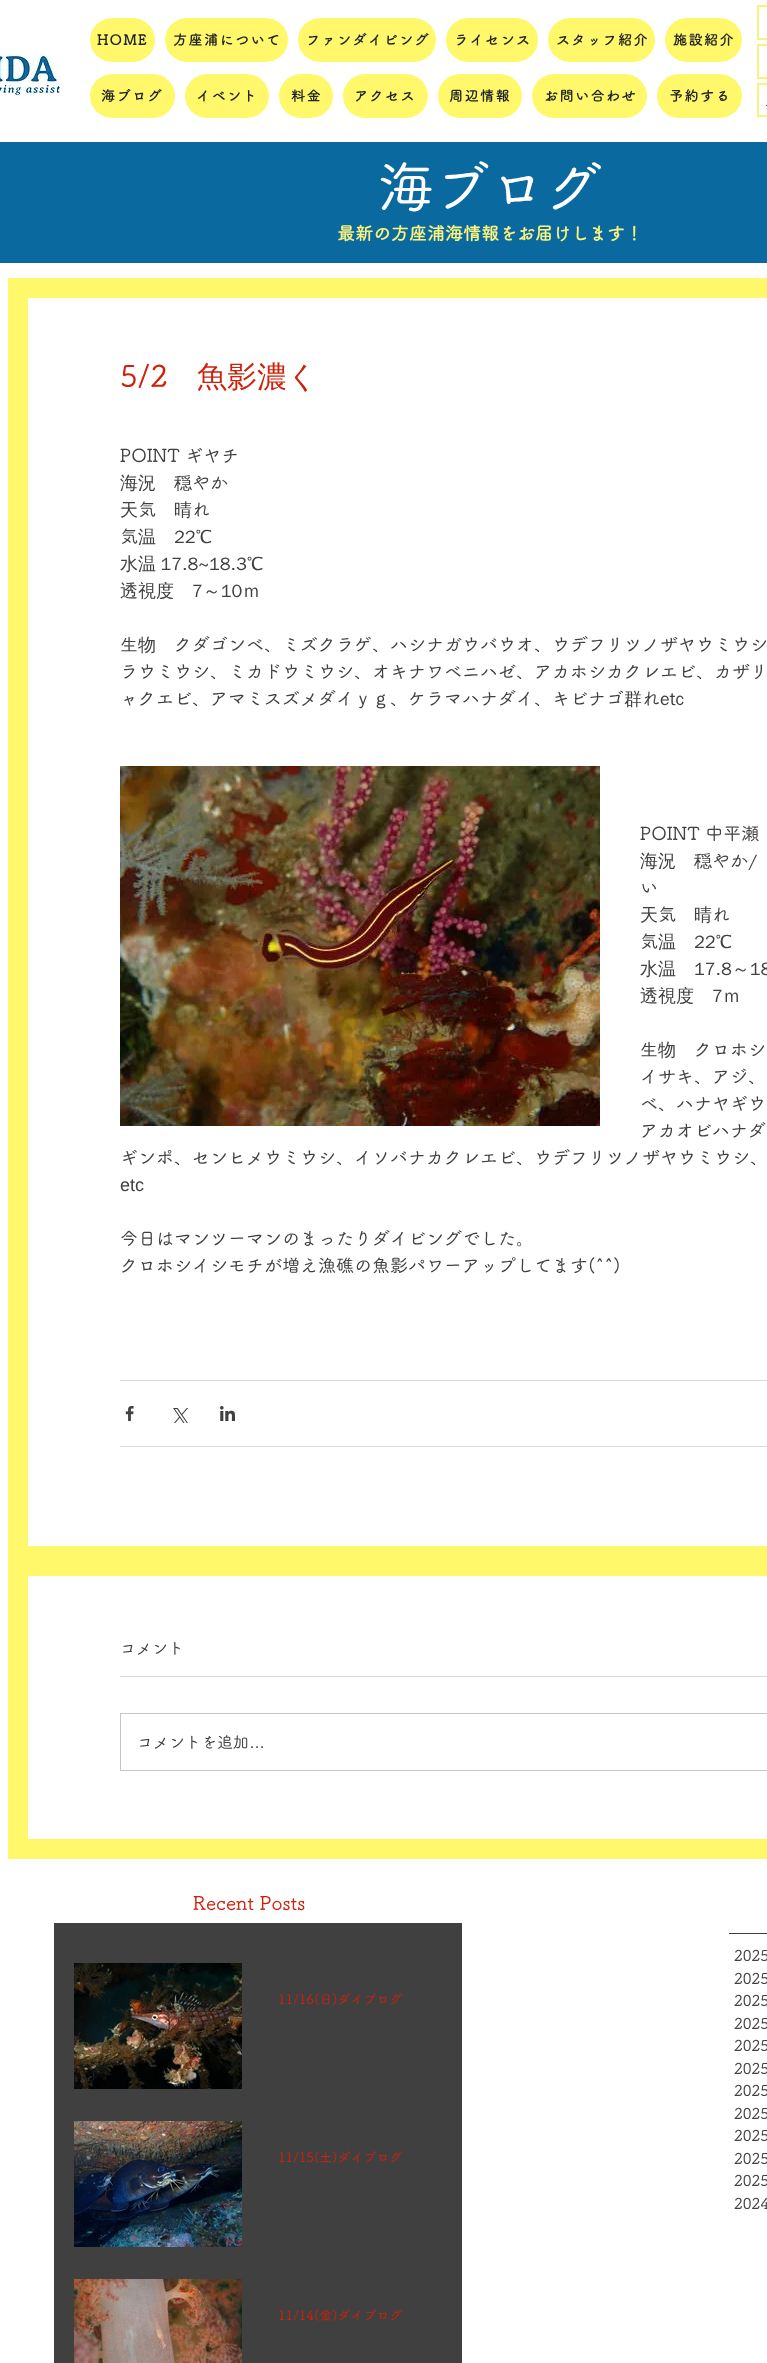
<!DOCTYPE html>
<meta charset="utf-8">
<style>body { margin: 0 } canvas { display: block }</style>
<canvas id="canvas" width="767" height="2363"></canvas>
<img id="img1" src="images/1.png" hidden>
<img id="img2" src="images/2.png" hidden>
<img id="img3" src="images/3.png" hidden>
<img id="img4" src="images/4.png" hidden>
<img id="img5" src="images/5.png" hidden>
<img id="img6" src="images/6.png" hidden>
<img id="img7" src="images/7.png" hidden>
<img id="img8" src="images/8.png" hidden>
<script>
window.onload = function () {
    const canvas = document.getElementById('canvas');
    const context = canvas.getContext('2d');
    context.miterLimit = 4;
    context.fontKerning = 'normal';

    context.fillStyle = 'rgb(255, 255, 255)';
    context.fillRect(0, 0, 767, 2363);
    context.strokeStyle = 'rgb(250, 242, 127)';
    context.lineWidth = 2;
    context.strokeRect(758, 6, 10, 33);
    context.drawImage(document.getElementById('img1'), 0, 52, 61, 45);
    context.fillStyle = 'rgb(255, 248, 107)';
    context.beginPath();
    context.roundRect(90, 18, 65, 44, 22);
    context.fill();
    context.beginPath();
    context.roundRect(165, 18, 123, 44, 22);
    context.fill();
    context.beginPath();
    context.roundRect(298, 18, 138, 44, 22);
    context.fill();
    context.beginPath();
    context.roundRect(446, 18, 92, 44, 22);
    context.fill();
    context.beginPath();
    context.roundRect(548, 18, 107, 44, 22);
    context.fill();
    context.beginPath();
    context.roundRect(665, 18, 77, 44, 22);
    context.fill();
    context.beginPath();
    context.roundRect(90, 74, 85, 44, 22);
    context.fill();
    context.beginPath();
    context.roundRect(185, 74, 84, 44, 22);
    context.fill();
    context.beginPath();
    context.roundRect(279, 74, 54, 44, 22);
    context.fill();
    context.beginPath();
    context.roundRect(343, 74, 85, 44, 22);
    context.fill();
    context.beginPath();
    context.roundRect(438, 74, 84, 44, 22);
    context.fill();
    context.beginPath();
    context.roundRect(532, 74, 115, 44, 22);
    context.fill();
    context.beginPath();
    context.roundRect(657, 74, 85, 44, 22);
    context.fill();
    context.strokeRect(758, 45, 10, 33);
    context.strokeRect(758, 84, 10, 32);
    context.fillStyle = 'rgb(50, 50, 50)';
    context.fillRect(766, 105, 1, 1);
    context.fillStyle = 'rgb(10, 105, 159)';
    context.fillRect(0, 142, 767, 121);
    context.fillStyle = 'rgb(255, 248, 107)';
    context.fillRect(8, 278, 759, 1581);
    context.fillStyle = 'rgb(255, 255, 255)';
    context.fillRect(28, 298, 739, 1248);
    context.drawImage(document.getElementById('img2'), 120, 766, 480, 360);
    context.fillStyle = 'rgb(217, 217, 217)';
    context.fillRect(120, 1380, 647, 1);
    context.drawImage(document.getElementById('img3'), 125, 1406, 9, 15);
    context.drawImage(document.getElementById('img4'), 173, 1408, 15, 15);
    context.drawImage(document.getElementById('img5'), 220, 1406, 15, 15);
    context.fillRect(120, 1446, 647, 1);
    context.fillStyle = 'rgb(255, 255, 255)';
    context.fillRect(28, 1576, 739, 263);
    context.fillStyle = 'rgb(217, 217, 217)';
    context.fillRect(120, 1676, 647, 1);
    context.strokeStyle = 'rgb(198, 198, 198)';
    context.lineWidth = 1;
    context.strokeRect(120.5, 1713.5, 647, 57);
    context.fillStyle = 'rgb(64, 64, 64)';
    context.fillRect(729, 1933, 38, 1);
    context.fillRect(54, 1923, 408, 440);
    context.drawImage(document.getElementById('img6'), 74, 1963, 168, 126);
    context.drawImage(document.getElementById('img7'), 74, 2121, 168, 126);
    context.drawImage(document.getElementById('img8'), 74, 2279, 168, 84);
    context.letterSpacing = '1.5px';
    context.font = 'bold 14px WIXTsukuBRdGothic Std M';
    context.fillStyle = 'rgb(36, 35, 35)';
    context.fillText('HOME', 97, 45);
    context.fillText('方座浦について', 173, 45);
    context.fillText('ファンダイビング', 306, 45);
    context.fillText('ライセンス', 454, 45);
    context.fillText('スタッフ紹介', 556, 45);
    context.fillText('施設紹介', 673, 45);
    context.fillText('海ブログ', 101, 101);
    context.fillText('イベント', 196, 101);
    context.fillText('料金', 291, 101);
    context.fillText('アクセス', 354, 101);
    context.fillText('周辺情報', 449, 101);
    context.fillText('お問い合わせ', 544, 101);
    context.fillText('予約する', 669, 101);
    context.letterSpacing = '0px';
    context.font = '500 56px WIXTsukuBRdGothic Std M';
    context.fillStyle = 'rgb(255, 255, 255)';
    context.fillText('海ブログ', 378, 208);
    context.font = 'bold 18px WIXTsukuBRdGothic Std M';
    context.fillStyle = 'rgb(250, 242, 127)';
    context.fillText('最新の方座浦海情報をお届けします！', 337, 240);
    context.font = '500 30px WIXTsukuBRdGothic Std M';
    context.fillStyle = 'rgb(207, 33, 10)';
    context.fillText('5/2', 120, 387);
    context.font = '500 30px WenQuanYi Zen Hei';
    context.fillText('魚影濃く', 197, 387);
    context.font = '500 18px WIXTsukuBRdGothic Std M';
    context.fillStyle = 'rgb(64, 64, 64)';
    context.fillText('POINT ギヤチ', 120, 462);
    context.font = '500 18px WenQuanYi Zen Hei';
    context.fillText('海況　穏', 120, 489);
    context.font = '500 18px WIXTsukuBRdGothic Std M';
    context.fillText('やか', 192, 489);
    context.font = '500 18px WenQuanYi Zen Hei';
    context.fillText('天', 120, 516);
    context.font = '500 18px WIXTsukuBRdGothic Std M';
    context.fillText('気', 138, 516);
    context.font = '500 18px WenQuanYi Zen Hei';
    context.fillText('晴', 174, 516);
    context.font = '500 18px WIXTsukuBRdGothic Std M';
    context.fillText('れ', 192, 516);
    context.fillText('気', 120, 543);
    context.font = '500 18px WenQuanYi Zen Hei';
    context.fillText('温　22℃', 138, 543);
    context.wordSpacing = '-1px';
    context.fillText('水温 17.8~18.3℃', 120, 570);
    context.wordSpacing = '0px';
    context.fillText('透視度　7～10ｍ', 120, 597);
    context.font = '500 18px WIXTsukuBRdGothic Std M';
    context.fillText('生', 120, 651);
    context.font = '500 18px WenQuanYi Zen Hei';
    context.fillText('物', 138, 651);
    context.font = '500 18px WIXTsukuBRdGothic Std M';
    context.fillText('クダゴンベ、ミズクラゲ、ハシナガウバウオ、ウデフリツノザヤウミウシ', 174, 651);
    context.fillText('ラウミウシ、ミカドウミウシ、オキナワベニハゼ、アカホシカクレエビ、カザリ', 120, 678);
    context.fillText('ャクエビ、アマミスズメダイ', 120, 705);
    context.font = '500 18px WenQuanYi Zen Hei';
    context.fillText('ｙｇ', 354, 705);
    context.font = '500 18px WIXTsukuBRdGothic Std M';
    context.fillText('、ケラマハナダイ、キビナゴ', 390, 705);
    context.font = '500 18px WenQuanYi Zen Hei';
    context.fillText('群', 624, 705);
    context.font = '500 18px WIXTsukuBRdGothic Std M';
    context.fillText('れ', 642, 705);
    context.font = '500 18px WenQuanYi Zen Hei';
    context.fillText('etc', 660, 705);
    context.font = '500 18px WIXTsukuBRdGothic Std M';
    context.fillText('POINT 中平瀬', 640, 840);
    context.font = '500 18px WenQuanYi Zen Hei';
    context.fillText('海況　穏', 640, 867);
    context.font = '500 18px WIXTsukuBRdGothic Std M';
    context.fillText('やか', 712, 867);
    context.font = '500 18px WenQuanYi Zen Hei';
    context.fillText('/', 748, 867);
    context.font = '500 18px WIXTsukuBRdGothic Std M';
    context.fillText('い', 640, 894);
    context.font = '500 18px WenQuanYi Zen Hei';
    context.fillText('天', 640, 921);
    context.font = '500 18px WIXTsukuBRdGothic Std M';
    context.fillText('気', 658, 921);
    context.font = '500 18px WenQuanYi Zen Hei';
    context.fillText('晴', 694, 921);
    context.font = '500 18px WIXTsukuBRdGothic Std M';
    context.fillText('れ', 712, 921);
    context.fillText('気', 640, 948);
    context.font = '500 18px WenQuanYi Zen Hei';
    context.fillText('温　22℃', 658, 948);
    context.fillText('水温　17.8～18', 640, 975);
    context.fillText('透視度　7ｍ', 640, 1002);
    context.font = '500 18px WIXTsukuBRdGothic Std M';
    context.fillText('生', 640, 1056);
    context.font = '500 18px WenQuanYi Zen Hei';
    context.fillText('物', 658, 1056);
    context.font = '500 18px WIXTsukuBRdGothic Std M';
    context.fillText('クロホシ', 694, 1056);
    context.fillText('イサキ、アジ、', 640, 1083);
    context.fillText('ベ、ハナヤギウ', 640, 1110);
    context.fillText('アカオビハナダ', 640, 1137);
    context.fillText('ギンポ、センヒメウミウシ、イソバナカクレエビ、ウデフリツノザヤウミウシ、', 120, 1164);
    context.font = '18px Liberation Sans';
    context.fillText('etc', 120, 1191);
    context.font = '500 18px WIXTsukuBRdGothic Std M';
    context.fillText('今日はマンツーマンのまったりダイビングでした。', 120, 1245);
    context.fillText('クロホシイシモチが増え漁礁の魚影パワーアップしてます(^^)', 120, 1272);
    context.font = '500 16px WIXTsukuBRdGothic Std M';
    context.fillText('コメント', 120, 1654);
    context.fillText('コメントを追加', 137, 1748);
    context.font = '16px Liberation Sans';
    context.fillText('…', 249, 1748);
    context.font = '500 19px WIXTsukuBRdGothic Std M';
    context.fillStyle = 'rgb(207, 33, 10)';
    context.fillText('Recent Posts', 193, 1910);
    context.font = '500 13px WIXTsukuBRdGothic Std M';
    context.fillText('11/16(日)ダイブログ', 278, 2004);
    context.fillText('11/15(土)ダイブログ', 278, 2162);
    context.fillText('11/14(金)ダイブログ', 278, 2320);
    context.font = '500 15px WIXTsukuBRdGothic Std M';
    context.fillStyle = 'rgb(64, 64, 64)';
    context.fillText('2025', 734, 1961);
    context.fillText('2025', 734, 1984);
    context.fillText('2025', 734, 2006);
    context.fillText('2025', 734, 2029);
    context.fillText('2025', 734, 2051);
    context.fillText('2025', 734, 2074);
    context.fillText('2025', 734, 2096);
    context.fillText('2025', 734, 2119);
    context.fillText('2025', 734, 2141);
    context.fillText('2025', 734, 2164);
    context.fillText('2025', 734, 2186);
    context.fillText('2024', 734, 2209);
};
</script>
